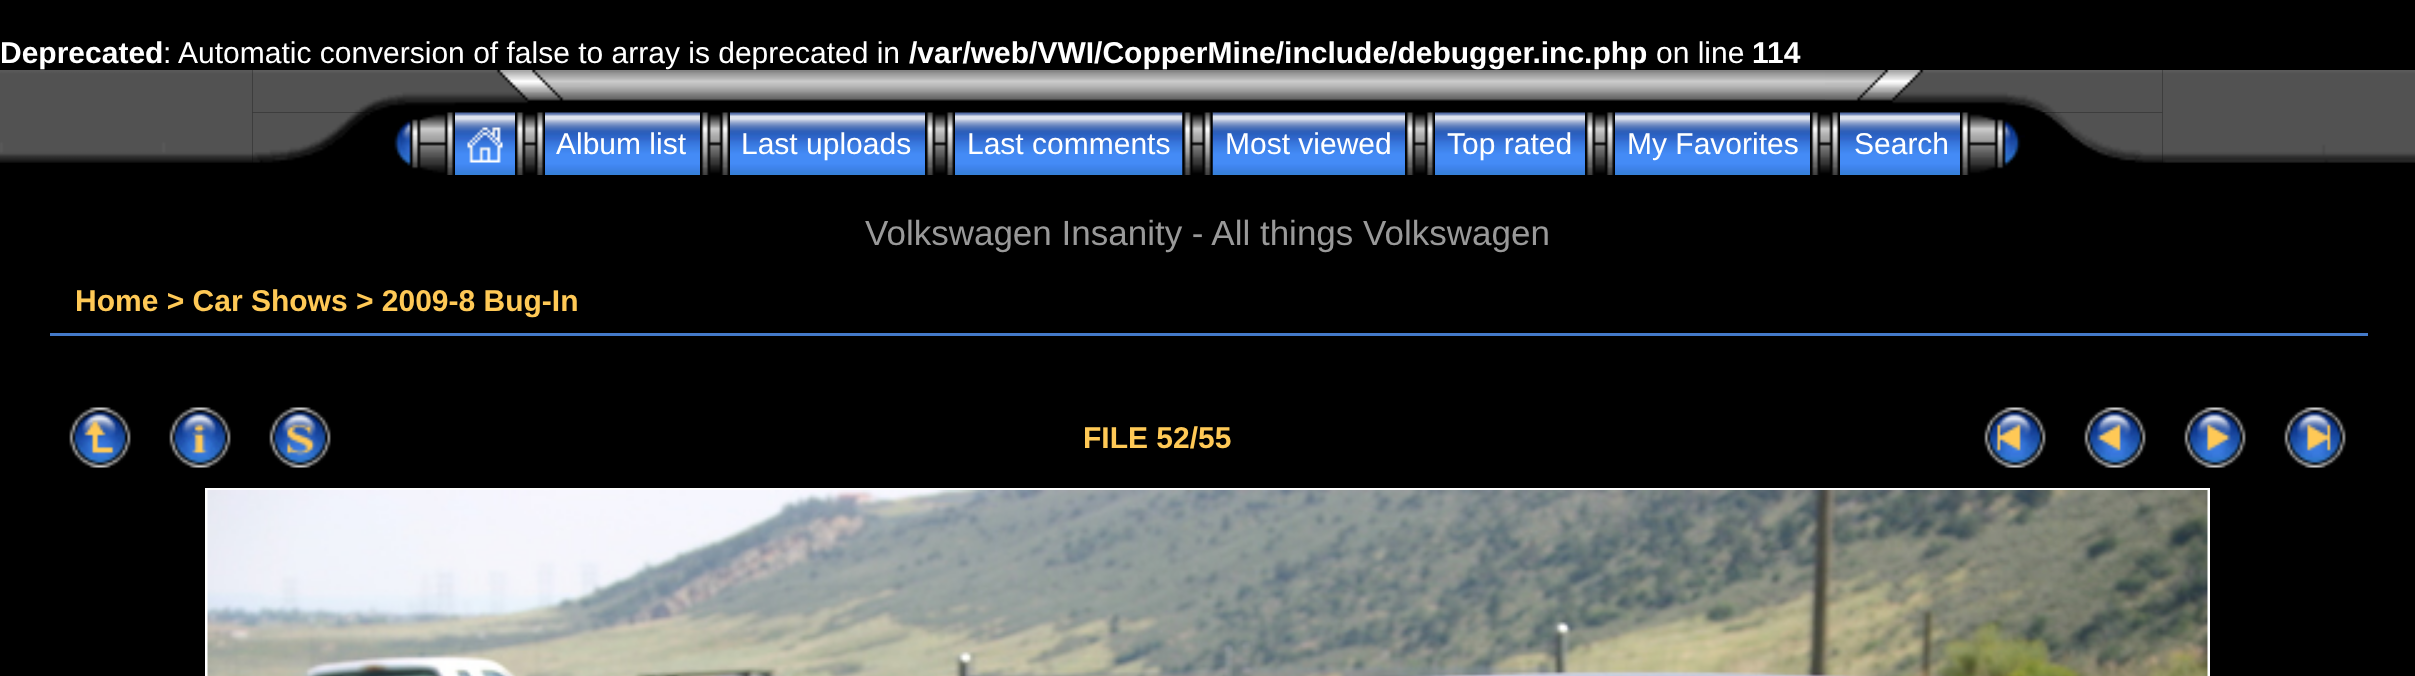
<!DOCTYPE html>
<meta charset="utf-8">
<style>body { margin: 0 } canvas { display: block }</style>
<canvas id="canvas" width="2415" height="676"></canvas>
<img id="img1" src="images/1.png" hidden>
<img id="img2" src="images/2.png" hidden>
<img id="img3" src="images/3.png" hidden>
<img id="img4" src="images/4.png" hidden>
<img id="img5" src="images/5.png" hidden>
<img id="img6" src="images/6.png" hidden>
<img id="img7" src="images/7.png" hidden>
<img id="img8" src="images/8.png" hidden>
<img id="img9" src="images/9.png" hidden>
<img id="img10" src="images/10.png" hidden>
<img id="img11" src="images/11.png" hidden>
<img id="img12" src="images/12.png" hidden>
<img id="img13" src="images/13.png" hidden>
<img id="img14" src="images/15.png" hidden>
<img id="img15" src="images/14.png" hidden>
<img id="img16" src="images/16.png" hidden>
<img id="img17" src="images/17.png" hidden>
<img id="img18" src="images/18.png" hidden>
<img id="img19" src="images/20.png" hidden>
<img id="img20" src="images/19.png" hidden>
<img id="img21" src="images/21.png" hidden>
<img id="img22" src="images/22.png" hidden>
<img id="img23" src="images/23.png" hidden>
<img id="img24" src="images/24.png" hidden>
<img id="img25" src="images/25.png" hidden>
<img id="img26" src="images/26.png" hidden>
<img id="img27" src="images/27.png" hidden>
<img id="img28" src="images/28.png" hidden>
<script>
window.onload = function () {
    const canvas = document.getElementById('canvas');
    const context = canvas.getContext('2d');
    context.miterLimit = 4;
    context.fontKerning = 'normal';

    context.fillStyle = 'rgb(0, 0, 0)';
    context.fillRect(0, 0, 2415, 676);
    context.drawImage(document.getElementById('img1'), 0, 70, 253, 93);
    context.drawImage(document.getElementById('img2'), 252, 70, 338, 43);
    context.drawImage(document.getElementById('img3'), 590, 70, 1235, 31);
    context.drawImage(document.getElementById('img4'), 1825, 70, 338, 43);
    context.drawImage(document.getElementById('img5'), 252, 112, 120, 51);
    context.drawImage(document.getElementById('img6'), 394, 112, 60, 63);
    context.drawImage(document.getElementById('img7'), 455, 112, 60, 63);
    context.drawImage(document.getElementById('img8'), 467, 127, 36, 36);
    context.drawImage(document.getElementById('img9'), 516, 112, 28, 63);
    context.drawImage(document.getElementById('img10'), 545, 112, 155, 63);
    context.drawImage(document.getElementById('img11'), 701, 112, 28, 63);
    context.drawImage(document.getElementById('img12'), 730, 112, 195, 63);
    context.drawImage(document.getElementById('img11'), 926, 112, 28, 63);
    context.drawImage(document.getElementById('img13'), 955, 112, 228, 63);
    context.drawImage(document.getElementById('img14'), 1212, 112, 193, 63);
    context.drawImage(document.getElementById('img15'), 1182, 112, 31, 63);
    context.drawImage(document.getElementById('img9'), 1406, 112, 28, 63);
    context.drawImage(document.getElementById('img16'), 1435, 112, 150, 63);
    context.drawImage(document.getElementById('img9'), 1586, 112, 28, 63);
    context.drawImage(document.getElementById('img12'), 1615, 112, 195, 63);
    context.drawImage(document.getElementById('img11'), 1811, 112, 28, 63);
    context.drawImage(document.getElementById('img17'), 1840, 112, 120, 63);
    context.drawImage(document.getElementById('img18'), 1960, 112, 65, 63);
    context.drawImage(document.getElementById('img19'), 2162, 70, 253, 93);
    context.drawImage(document.getElementById('img20'), 2040, 112, 123, 51);
    context.fillStyle = 'rgb(68, 122, 201)';
    context.fillRect(50, 333, 2318, 3);
    context.drawImage(document.getElementById('img21'), 69, 407, 62, 61);
    context.drawImage(document.getElementById('img22'), 169, 407, 62, 61);
    context.drawImage(document.getElementById('img23'), 269, 407, 62, 61);
    context.drawImage(document.getElementById('img24'), 1984, 407, 62, 61);
    context.drawImage(document.getElementById('img25'), 2084, 407, 62, 61);
    context.drawImage(document.getElementById('img26'), 2184, 407, 62, 61);
    context.drawImage(document.getElementById('img27'), 2284, 407, 62, 61);
    context.strokeStyle = 'rgb(255, 255, 255)';
    context.lineWidth = 3;
    context.strokeRect(206.5, 489.5, 2002, 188);
    context.drawImage(document.getElementById('img28'), 207, 490, 2001, 186);
    context.font = 'bold 30px Liberation Sans';
    context.fillStyle = 'rgb(255, 255, 255)';
    context.fillText('Deprecated', 0, 63);
    context.font = '30px Liberation Sans';
    context.fillText(':', 163, 63);
    context.fillText('Automatic conversion of false to array is deprecated in', 178, 63);
    context.font = 'bold 30px Liberation Sans';
    context.fillText('/var/web/VWI/CopperMine/include/debugger.inc.php', 909, 63);
    context.font = '30px Liberation Sans';
    context.fillText('on line', 1656, 63);
    context.font = 'bold 30px Liberation Sans';
    context.fillText('114', 1752, 63);
    context.font = '30px Liberation Sans';
    context.fillText('Album list', 556, 154);
    context.fillText('Last uploads', 741, 154);
    context.fillText('Last comments', 967, 154);
    context.fillText('Most viewed', 1225, 154);
    context.fillText('Top rated', 1447, 154);
    context.fillText('My Favorites', 1627, 154);
    context.fillText('Search', 1854, 154);
    context.font = '35px Liberation Sans';
    context.fillStyle = 'rgb(153, 153, 153)';
    context.fillText('Volkswagen Insanity - All things Volkswagen', 865, 245);
    context.font = 'bold 30px Liberation Sans';
    context.fillStyle = 'rgb(255, 201, 86)';
    context.fillText('Home > Car Shows > 2009-8 Bug-In', 75, 311);
    context.fillText('FILE 52/55', 1083, 448);
};
</script>
